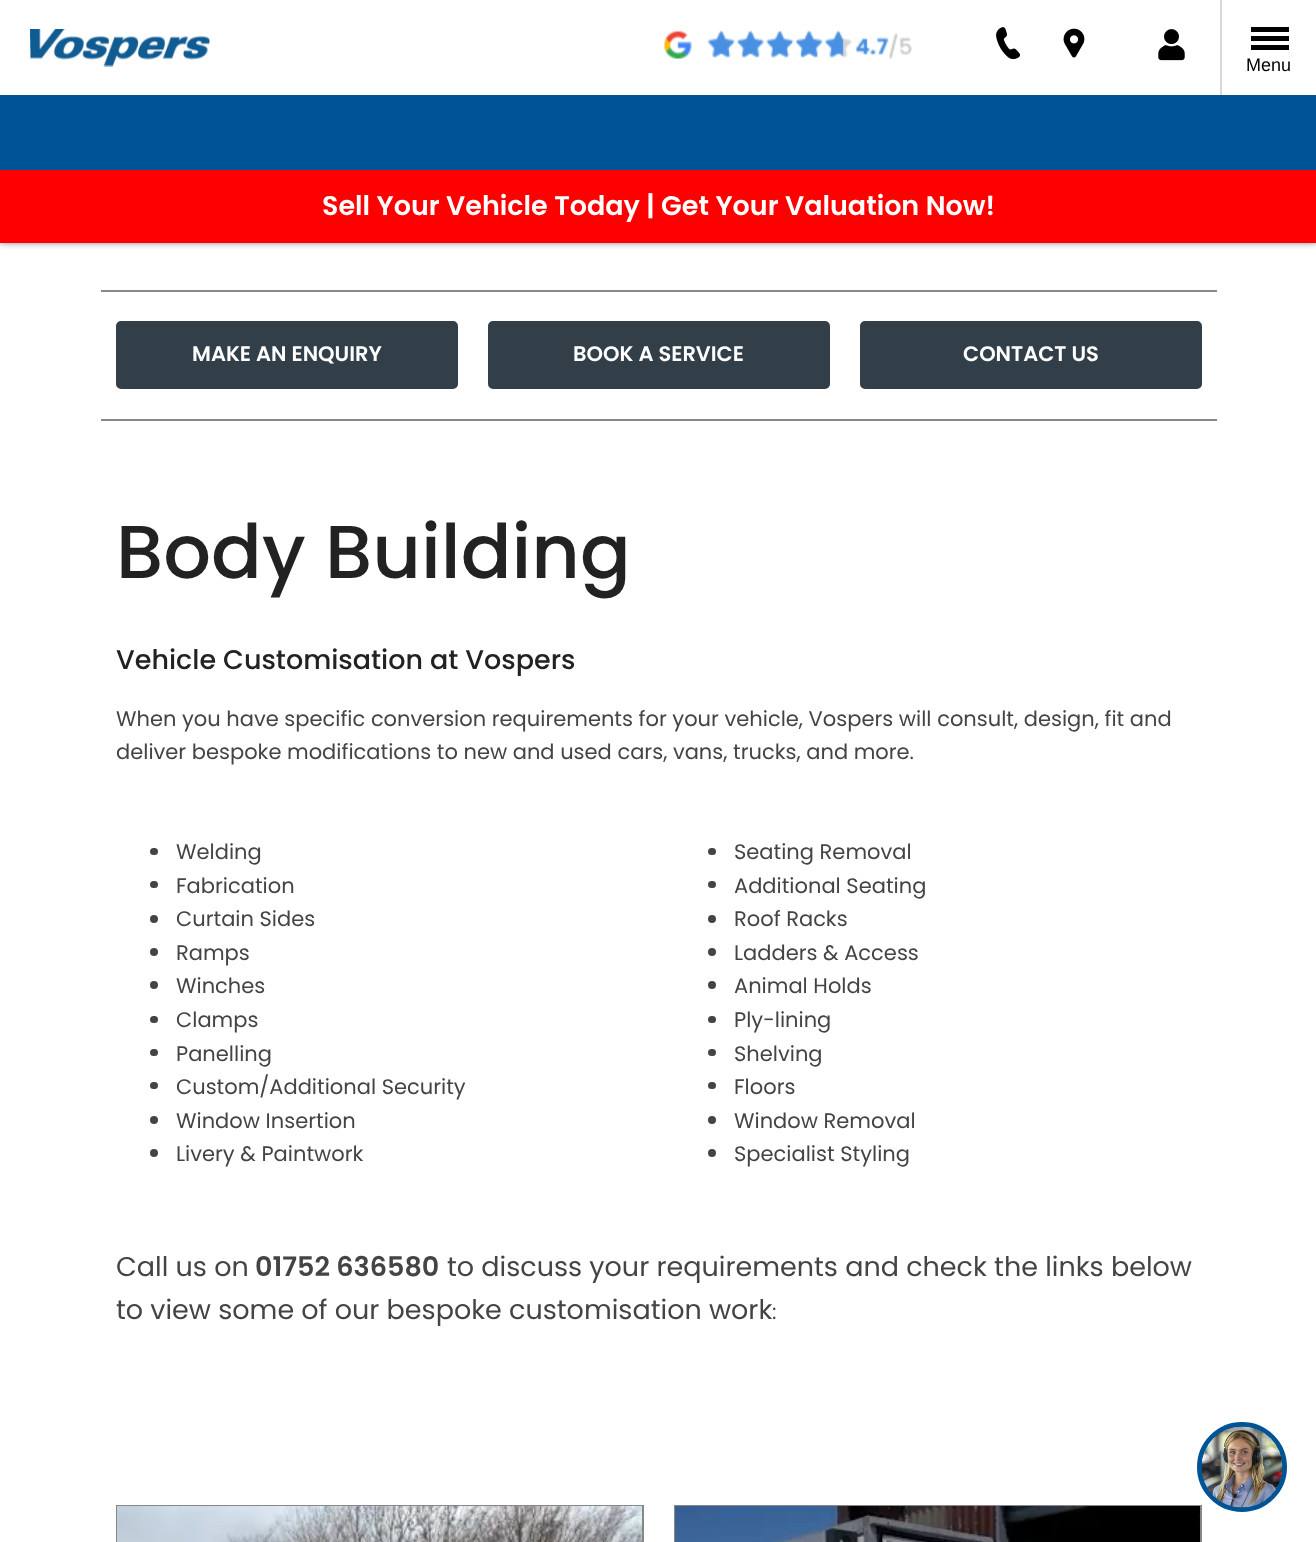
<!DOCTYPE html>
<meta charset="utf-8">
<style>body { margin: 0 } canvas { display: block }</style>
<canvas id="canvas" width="1316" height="1542"></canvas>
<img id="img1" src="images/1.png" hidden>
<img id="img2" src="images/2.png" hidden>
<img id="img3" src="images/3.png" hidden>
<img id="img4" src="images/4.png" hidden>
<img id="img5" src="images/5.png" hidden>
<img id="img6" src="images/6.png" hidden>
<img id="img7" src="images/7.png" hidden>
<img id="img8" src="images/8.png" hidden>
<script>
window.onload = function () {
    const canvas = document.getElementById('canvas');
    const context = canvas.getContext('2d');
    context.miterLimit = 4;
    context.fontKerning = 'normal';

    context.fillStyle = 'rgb(255, 255, 255)';
    context.fillRect(0, 0, 1316, 1542);
    context.save();
    context.beginPath();
    context.rect(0, 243, 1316, 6);
    context.clip();
    context.fillStyle = 'rgba(0, 0, 0, 0.3)';
    context.filter = 'blur(4px)';
    context.beginPath();
    context.rect(0, 0, 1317, 243);
    context.fill();
    context.filter = 'none';
    context.restore();
    context.save();
    context.beginPath();
    context.rect(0, 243, 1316, 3);
    context.clip();
    context.fillStyle = 'rgba(0, 0, 0, 0.2)';
    context.filter = 'blur(2px)';
    context.beginPath();
    context.rect(0, 0, 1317, 243);
    context.fill();
    context.filter = 'none';
    context.restore();
    context.drawImage(document.getElementById('img1'), 30, 29, 180, 38);
    context.drawImage(document.getElementById('img2'), 664, 30, 248, 29);
    context.drawImage(document.getElementById('img3'), 996, 27, 24, 33);
    context.drawImage(document.getElementById('img4'), 1063, 28, 22, 30);
    context.drawImage(document.getElementById('img5'), 1158, 29, 27, 32);
    context.fillStyle = 'rgb(216, 216, 216)';
    context.fillRect(1220, 0, 2, 95);
    context.fillStyle = 'rgb(0, 0, 0)';
    context.fillRect(1251, 45, 38, 5);
    context.fillRect(1251, 27, 38, 5);
    context.fillRect(1251, 36, 38, 5);
    context.fillStyle = 'rgb(0, 83, 149)';
    context.fillRect(0, 95, 1316, 75);
    context.fillStyle = 'rgb(255, 0, 0)';
    context.fillRect(0, 170, 1316, 73);
    context.fillStyle = 'rgb(136, 136, 136)';
    context.fillRect(101, 290, 1116, 2);
    context.fillStyle = 'rgb(50, 63, 73)';
    context.beginPath();
    context.roundRect(117, 322, 340, 66, 4);
    context.fill();
    context.strokeStyle = 'rgb(50, 63, 73)';
    context.lineWidth = 2;
    context.stroke();
    context.beginPath();
    context.roundRect(489, 322, 340, 66, 4);
    context.fill();
    context.stroke();
    context.beginPath();
    context.roundRect(861, 322, 340, 66, 4);
    context.fill();
    context.stroke();
    context.fillStyle = 'rgb(136, 136, 136)';
    context.fillRect(101, 419, 1116, 2);
    context.fillStyle = 'rgb(68, 68, 68)';
    context.beginPath();
    context.roundRect(150, 848, 8, 7, 3.5);
    context.fill();
    context.beginPath();
    context.roundRect(150, 881, 8, 7, 3.5);
    context.fill();
    context.beginPath();
    context.arc(154, 919, 4, 0, 2 * Math.PI);
    context.fill();
    context.beginPath();
    context.arc(154, 952, 4, 0, 2 * Math.PI);
    context.fill();
    context.beginPath();
    context.arc(154, 985, 4, 0, 2 * Math.PI);
    context.fill();
    context.beginPath();
    context.roundRect(150, 1016, 8, 7, 3.5);
    context.fill();
    context.beginPath();
    context.roundRect(150, 1049, 8, 7, 3.5);
    context.fill();
    context.beginPath();
    context.roundRect(150, 1082, 8, 7, 3.5);
    context.fill();
    context.beginPath();
    context.arc(154, 1120, 4, 0, 2 * Math.PI);
    context.fill();
    context.beginPath();
    context.arc(154, 1153, 4, 0, 2 * Math.PI);
    context.fill();
    context.beginPath();
    context.roundRect(708, 848, 8, 7, 3.5);
    context.fill();
    context.beginPath();
    context.roundRect(708, 881, 8, 7, 3.5);
    context.fill();
    context.beginPath();
    context.arc(712, 919, 4, 0, 2 * Math.PI);
    context.fill();
    context.beginPath();
    context.arc(712, 952, 4, 0, 2 * Math.PI);
    context.fill();
    context.beginPath();
    context.arc(712, 985, 4, 0, 2 * Math.PI);
    context.fill();
    context.beginPath();
    context.roundRect(708, 1016, 8, 7, 3.5);
    context.fill();
    context.beginPath();
    context.roundRect(708, 1049, 8, 7, 3.5);
    context.fill();
    context.beginPath();
    context.roundRect(708, 1082, 8, 7, 3.5);
    context.fill();
    context.beginPath();
    context.arc(712, 1120, 4, 0, 2 * Math.PI);
    context.fill();
    context.beginPath();
    context.arc(712, 1153, 4, 0, 2 * Math.PI);
    context.fill();
    context.strokeStyle = 'rgb(136, 136, 136)';
    context.strokeRect(117, 1506, 526, 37);
    context.drawImage(document.getElementById('img6'), 117, 1506, 525, 36);
    context.strokeRect(675, 1506, 526, 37);
    context.drawImage(document.getElementById('img7'), 675, 1506, 525, 36);
    context.beginPath();
    context.arc(1242, 1467, 42.5, 0, 2 * Math.PI);
    context.strokeStyle = 'rgb(0, 84, 149)';
    context.lineWidth = 5;
    context.stroke();
    context.drawImage(document.getElementById('img8'), 1201, 1426, 82, 82);
    context.font = '18px Liberation Sans';
    context.fillStyle = 'rgb(0, 0, 0)';
    context.fillText('Menu', 1246, 71);
    context.font = '600 27px Poppins';
    context.fillStyle = 'rgb(255, 255, 255)';
    context.fillText('Sell Your Vehicle Today | Get Your Valuation Now!', 322, 215);
    context.font = '600 21px Poppins';
    context.fillText('MAKE AN ENQUIRY', 192, 361);
    context.fillText('BOOK A SERVICE', 573, 361);
    context.fillText('CONTACT US', 963, 361);
    context.font = '500 75px Poppins';
    context.fillStyle = 'rgb(34, 34, 34)';
    context.fillText('Body Building', 116, 578);
    context.font = '500 27px Poppins';
    context.fillText('Vehicle Customisation at Vospers', 116, 669);
    context.font = '21px Poppins';
    context.fillStyle = 'rgb(68, 68, 68)';
    context.fillText('When you have specific conversion requirements for your vehicle, Vospers will consult, design, fit and', 116, 726);
    context.fillText('deliver bespoke modifications to new and used cars, vans, trucks, and more.', 116, 759);
    context.fillText('Welding', 176, 859);
    context.fillText('Fabrication', 176, 893);
    context.fillText('Curtain Sides', 176, 926);
    context.fillText('Ramps', 176, 960);
    context.fillText('Winches', 176, 993);
    context.fillText('Clamps', 176, 1027);
    context.fillText('Panelling', 176, 1061);
    context.fillText('Custom/Additional Security', 176, 1094);
    context.fillText('Window Insertion', 176, 1128);
    context.fillText('Livery & Paintwork', 176, 1161);
    context.fillText('Seating Removal', 734, 859);
    context.fillText('Additional Seating', 734, 893);
    context.fillText('Roof Racks', 734, 926);
    context.fillText('Ladders & Access', 734, 960);
    context.fillText('Animal Holds', 734, 993);
    context.fillText('Ply-lining', 734, 1027);
    context.fillText('Shelving', 734, 1061);
    context.fillText('Floors', 734, 1094);
    context.fillText('Window Removal', 734, 1128);
    context.fillText('Specialist Styling', 734, 1161);
    context.font = '27px Poppins';
    context.fillText('Call us on', 116, 1276);
    context.font = '600 27px Poppins';
    context.fillText('01752 636580', 255, 1276);
    context.font = '27px Poppins';
    context.fillText('to discuss your requirements and check the links below', 447, 1276);
    context.fillText('to view some of our bespoke customisation work', 116, 1319);
    context.font = '21px Poppins';
    context.fillText(':', 772, 1319);
};
</script>
